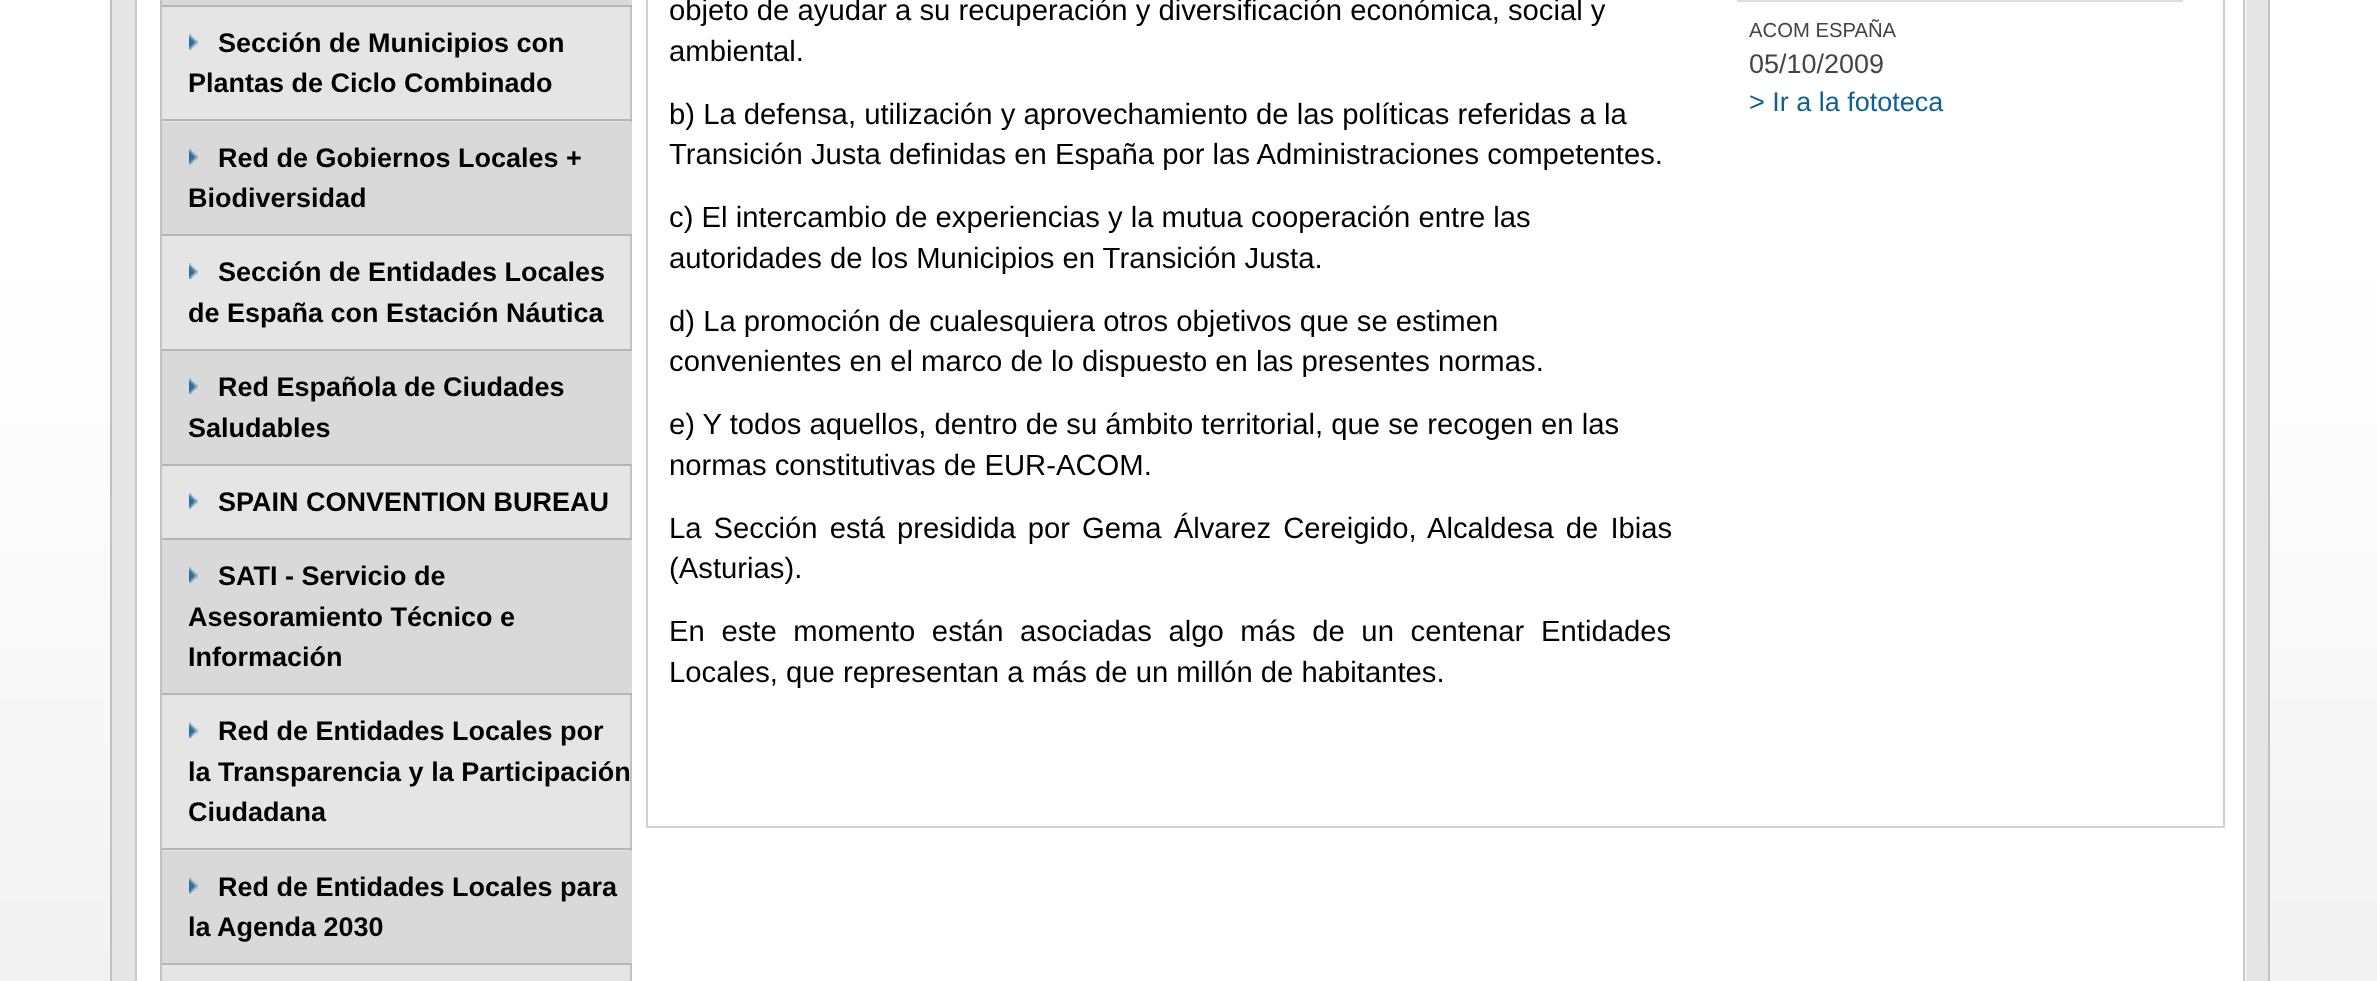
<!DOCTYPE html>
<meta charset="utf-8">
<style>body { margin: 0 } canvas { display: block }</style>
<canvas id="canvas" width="2377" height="981"></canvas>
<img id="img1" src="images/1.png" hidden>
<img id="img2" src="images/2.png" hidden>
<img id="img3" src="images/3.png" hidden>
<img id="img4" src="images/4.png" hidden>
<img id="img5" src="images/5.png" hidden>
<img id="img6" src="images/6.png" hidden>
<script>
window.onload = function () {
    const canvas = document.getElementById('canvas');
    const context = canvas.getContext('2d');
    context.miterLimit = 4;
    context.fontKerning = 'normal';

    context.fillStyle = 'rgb(255, 255, 255)';
    context.fillRect(0, 0, 2377, 981);
    context.drawImage(document.getElementById('img1'), 0, 0, 2377, 981);
    context.fillStyle = 'rgb(229, 229, 229)';
    context.fillRect(112, 0, 2156, 981);
    context.fillStyle = 'rgb(193, 193, 193)';
    context.fillRect(2268, 0, 2, 981);
    context.fillRect(110, 0, 2, 981);
    context.fillStyle = 'rgb(255, 255, 255)';
    context.fillRect(137, 0, 2109, 981);
    context.fillStyle = 'rgb(200, 200, 200)';
    context.fillRect(2243, 0, 2, 981);
    context.fillRect(135, 0, 2, 981);
    context.fillStyle = 'rgb(229, 229, 229)';
    context.fillRect(162, 7, 468, 974);
    context.fillStyle = 'rgb(193, 193, 193)';
    context.fillRect(630, 0, 2, 981);
    context.fillRect(160, 0, 2, 981);
    context.fillStyle = 'rgb(217, 217, 217)';
    context.fillRect(162, 0, 470, 5);
    context.fillStyle = 'rgb(181, 181, 181)';
    context.fillRect(162, 5, 470, 2);
    context.fillRect(162, 119, 470, 2);
    context.drawImage(document.getElementById('img2'), 189, 33, 9, 17);
    context.fillStyle = 'rgb(217, 217, 217)';
    context.fillRect(162, 122, 470, 112);
    context.fillStyle = 'rgb(181, 181, 181)';
    context.fillRect(162, 234, 470, 2);
    context.drawImage(document.getElementById('img3'), 189, 148, 9, 17);
    context.fillRect(162, 349, 470, 2);
    context.drawImage(document.getElementById('img4'), 189, 263, 9, 16);
    context.fillStyle = 'rgb(217, 217, 217)';
    context.fillRect(162, 351, 470, 113);
    context.fillStyle = 'rgb(181, 181, 181)';
    context.fillRect(162, 464, 470, 2);
    context.drawImage(document.getElementById('img5'), 189, 378, 9, 16);
    context.fillRect(162, 538, 470, 2);
    context.drawImage(document.getElementById('img2'), 189, 492, 9, 17);
    context.fillStyle = 'rgb(217, 217, 217)';
    context.fillRect(162, 540, 470, 153);
    context.fillStyle = 'rgb(181, 181, 181)';
    context.fillRect(162, 693, 470, 2);
    context.drawImage(document.getElementById('img6'), 189, 567, 9, 16);
    context.fillRect(162, 848, 470, 2);
    context.drawImage(document.getElementById('img4'), 189, 722, 9, 16);
    context.fillStyle = 'rgb(217, 217, 217)';
    context.fillRect(162, 851, 470, 112);
    context.fillStyle = 'rgb(181, 181, 181)';
    context.fillRect(162, 963, 470, 2);
    context.drawImage(document.getElementById('img3'), 189, 877, 9, 17);
    context.strokeStyle = 'rgb(210, 210, 210)';
    context.lineWidth = 2;
    context.strokeRect(647, -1, 1577, 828);
    context.strokeStyle = 'rgb(221, 221, 221)';
    context.strokeRect(1738, -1, 444, 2);
    context.font = 'bold 27px Liberation Sans';
    context.fillStyle = 'rgb(0, 0, 0)';
    context.fillText('Sección de Municipios con', 218, 52);
    context.fillText('Plantas de Ciclo Combinado', 188, 92);
    context.fillText('Red de Gobiernos Locales +', 218, 167);
    context.fillText('Biodiversidad', 188, 207);
    context.fillText('Sección de Entidades Locales', 218, 281);
    context.fillText('de España con Estación Náutica', 188, 322);
    context.fillText('Red Española de Ciudades', 218, 396);
    context.fillText('Saludables', 188, 437);
    context.fillText('SPAIN CONVENTION BUREAU', 218, 511);
    context.fillText('SATI - Servicio de', 218, 585);
    context.fillText('Asesoramiento Técnico e', 188, 626);
    context.fillText('Información', 188, 666);
    context.fillText('Red de Entidades Locales por', 218, 740);
    context.fillText('la Transparencia y la Participación', 188, 781);
    context.fillText('Ciudadana', 188, 821);
    context.fillText('Red de Entidades Locales para', 218, 896);
    context.fillText('la Agenda 2030', 188, 936);
    context.font = '29.25px Liberation Sans';
    context.fillText('objeto de ayudar a su recuperación y diversificación económica, social y', 669, 20);
    context.fillText('ambiental.', 669, 61);
    context.fillText('b) La defensa, utilización y aprovechamiento de las políticas referidas a la', 669, 124);
    context.fillText('Transición Justa definidas en España por las Administraciones competentes.', 669, 164);
    context.fillText('c) El intercambio de experiencias y la mutua cooperación entre las', 669, 227);
    context.fillText('autoridades de los Municipios en Transición Justa.', 669, 268);
    context.fillText('d) La promoción de cualesquiera otros objetivos que se estimen', 669, 331);
    context.fillText('convenientes en el marco de lo dispuesto en las presentes normas.', 669, 371);
    context.fillText('e) Y todos aquellos, dentro de su ámbito territorial, que se recogen en las', 669, 434);
    context.fillText('normas constitutivas de EUR-ACOM.', 669, 475);
    context.wordSpacing = '3.9px';
    context.fillText('La Sección está presidida por Gema Álvarez Cereigido, Alcaldesa de Ibias', 669, 538);
    context.wordSpacing = '0px';
    context.fillText('(Asturias).', 669, 578);
    context.wordSpacing = '8.5px';
    context.fillText('En este momento están asociadas algo más de un centenar Entidades', 669, 641);
    context.wordSpacing = '0px';
    context.fillText('Locales, que representan a más de un millón de habitantes.', 669, 682);
    context.font = '20.25px Liberation Sans';
    context.fillStyle = 'rgb(68, 68, 68)';
    context.fillText('ACOM ESPAÑA', 1749, 37);
    context.font = '27px Liberation Sans';
    context.fillText('05/10/2009', 1749, 73);
    context.fillStyle = 'rgb(15, 97, 148)';
    context.fillText('> Ir a la fototeca', 1749, 111);
};
</script>
